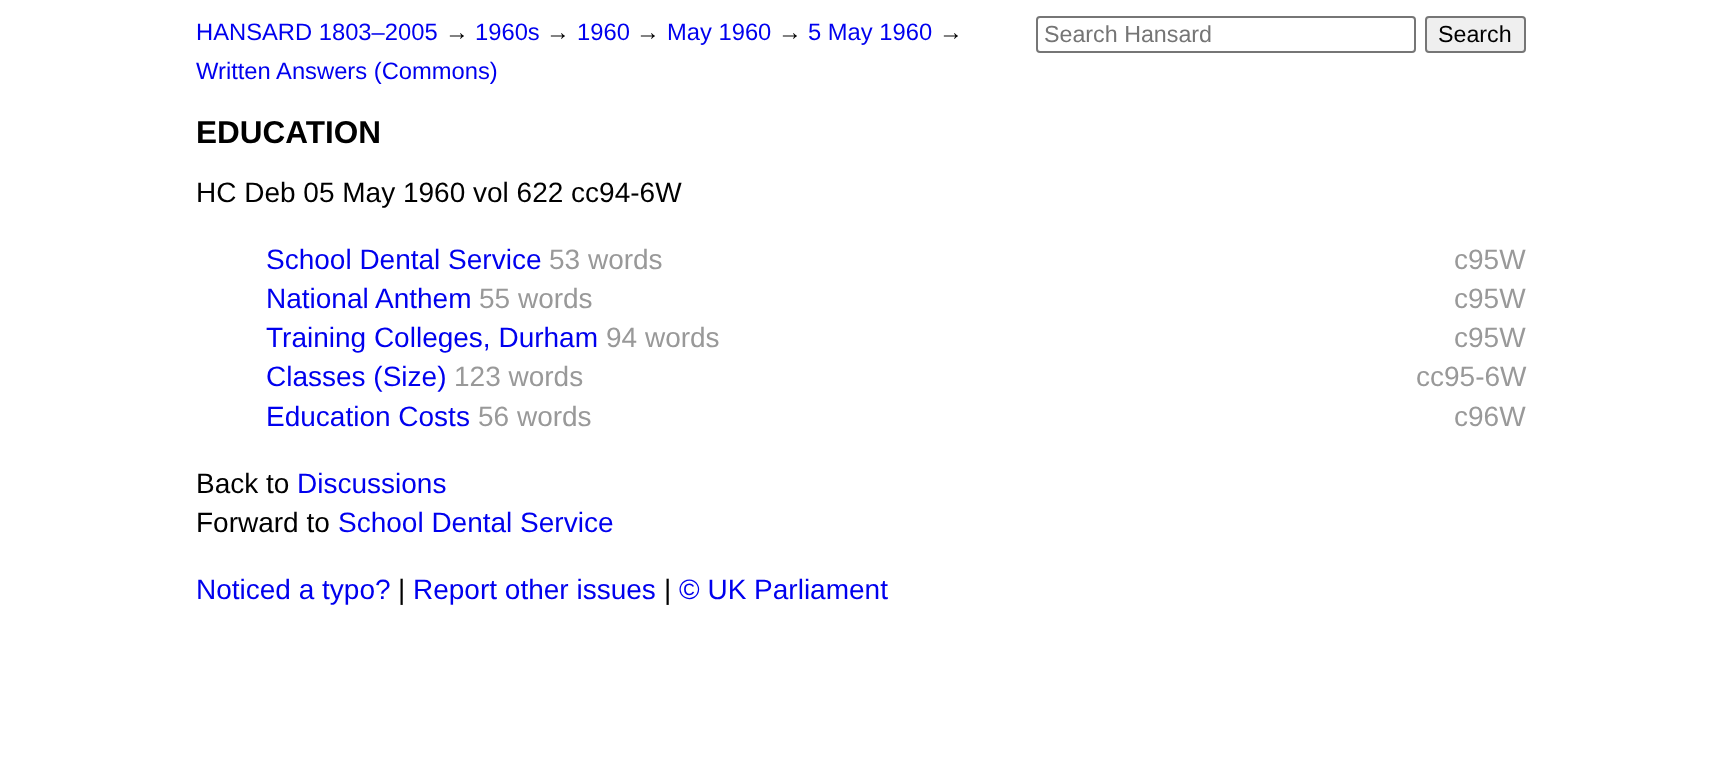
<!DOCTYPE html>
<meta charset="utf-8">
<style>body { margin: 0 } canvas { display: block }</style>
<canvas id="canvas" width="1722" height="783"></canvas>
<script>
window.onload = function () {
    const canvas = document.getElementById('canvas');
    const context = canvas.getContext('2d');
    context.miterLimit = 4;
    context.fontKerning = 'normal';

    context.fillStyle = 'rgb(255, 255, 255)';
    context.fillRect(0, 0, 1722, 783);
    context.beginPath();
    context.roundRect(1037, 17, 378, 35, 3);
    context.strokeStyle = 'rgb(118, 118, 118)';
    context.lineWidth = 2;
    context.stroke();
    context.fillStyle = 'rgb(239, 239, 239)';
    context.beginPath();
    context.roundRect(1426, 17, 99, 35, 3);
    context.fill();
    context.stroke();
    context.font = '23.75px Liberation Sans';
    context.fillStyle = 'rgb(0, 0, 238)';
    context.fillText('HANSARD 1803–2005', 196, 40);
    context.fillStyle = 'rgb(0, 0, 0)';
    context.fillText('→', 445, 40);
    context.fillStyle = 'rgb(0, 0, 238)';
    context.fillText('1960s', 475, 40);
    context.fillStyle = 'rgb(0, 0, 0)';
    context.fillText('→', 546, 40);
    context.fillStyle = 'rgb(0, 0, 238)';
    context.fillText('1960', 577, 40);
    context.fillStyle = 'rgb(0, 0, 0)';
    context.fillText('→', 636, 40);
    context.fillStyle = 'rgb(0, 0, 238)';
    context.fillText('May 1960', 667, 40);
    context.fillStyle = 'rgb(0, 0, 0)';
    context.fillText('→', 778, 40);
    context.fillStyle = 'rgb(0, 0, 238)';
    context.fillText('5 May 1960', 808, 40);
    context.fillStyle = 'rgb(0, 0, 0)';
    context.fillText('→', 939, 40);
    context.fillStyle = 'rgb(0, 0, 238)';
    context.fillText('Written Answers (Commons)', 196, 79);
    context.font = '23.25px Liberation Sans';
    context.fillStyle = 'rgb(117, 117, 117)';
    context.fillText('Search Hansard', 1044, 42);
    context.fillStyle = 'rgb(0, 0, 0)';
    context.fillText('Search', 1438, 42);
    context.font = 'bold 31.5px Liberation Sans';
    context.fillText('EDUCATION', 196, 143);
    context.font = '28px Liberation Sans';
    context.fillText('HC Deb 05 May 1960 vol 622 cc94-6W', 196, 202);
    context.fillStyle = 'rgb(0, 0, 238)';
    context.fillText('School Dental Service', 266, 269);
    context.fillStyle = 'rgb(153, 153, 153)';
    context.fillText('53 words', 549, 269);
    context.fillText('c95W', 1454, 269);
    context.fillStyle = 'rgb(0, 0, 238)';
    context.fillText('National Anthem', 266, 308);
    context.fillStyle = 'rgb(153, 153, 153)';
    context.fillText('55 words', 479, 308);
    context.fillText('c95W', 1454, 308);
    context.fillStyle = 'rgb(0, 0, 238)';
    context.fillText('Training Colleges, Durham', 266, 347);
    context.fillStyle = 'rgb(153, 153, 153)';
    context.fillText('94 words', 606, 347);
    context.fillText('c95W', 1454, 347);
    context.fillStyle = 'rgb(0, 0, 238)';
    context.fillText('Classes (Size)', 266, 386);
    context.fillStyle = 'rgb(153, 153, 153)';
    context.fillText('123 words', 454, 386);
    context.fillText('cc95-6W', 1416, 386);
    context.fillStyle = 'rgb(0, 0, 238)';
    context.fillText('Education Costs', 266, 426);
    context.fillStyle = 'rgb(153, 153, 153)';
    context.fillText('56 words', 478, 426);
    context.fillText('c96W', 1454, 426);
    context.fillStyle = 'rgb(0, 0, 0)';
    context.fillText('Back to', 196, 493);
    context.fillStyle = 'rgb(0, 0, 238)';
    context.fillText('Discussions', 297, 493);
    context.fillStyle = 'rgb(0, 0, 0)';
    context.fillText('Forward to', 196, 532);
    context.fillStyle = 'rgb(0, 0, 238)';
    context.fillText('School Dental Service', 338, 532);
    context.fillText('Noticed a typo?', 196, 599);
    context.fillStyle = 'rgb(0, 0, 0)';
    context.fillText('|', 398, 599);
    context.fillStyle = 'rgb(0, 0, 238)';
    context.fillText('Report other issues', 413, 599);
    context.fillStyle = 'rgb(0, 0, 0)';
    context.fillText('|', 664, 599);
    context.fillStyle = 'rgb(0, 0, 238)';
    context.fillText('© UK Parliament', 679, 599);
};
</script>
